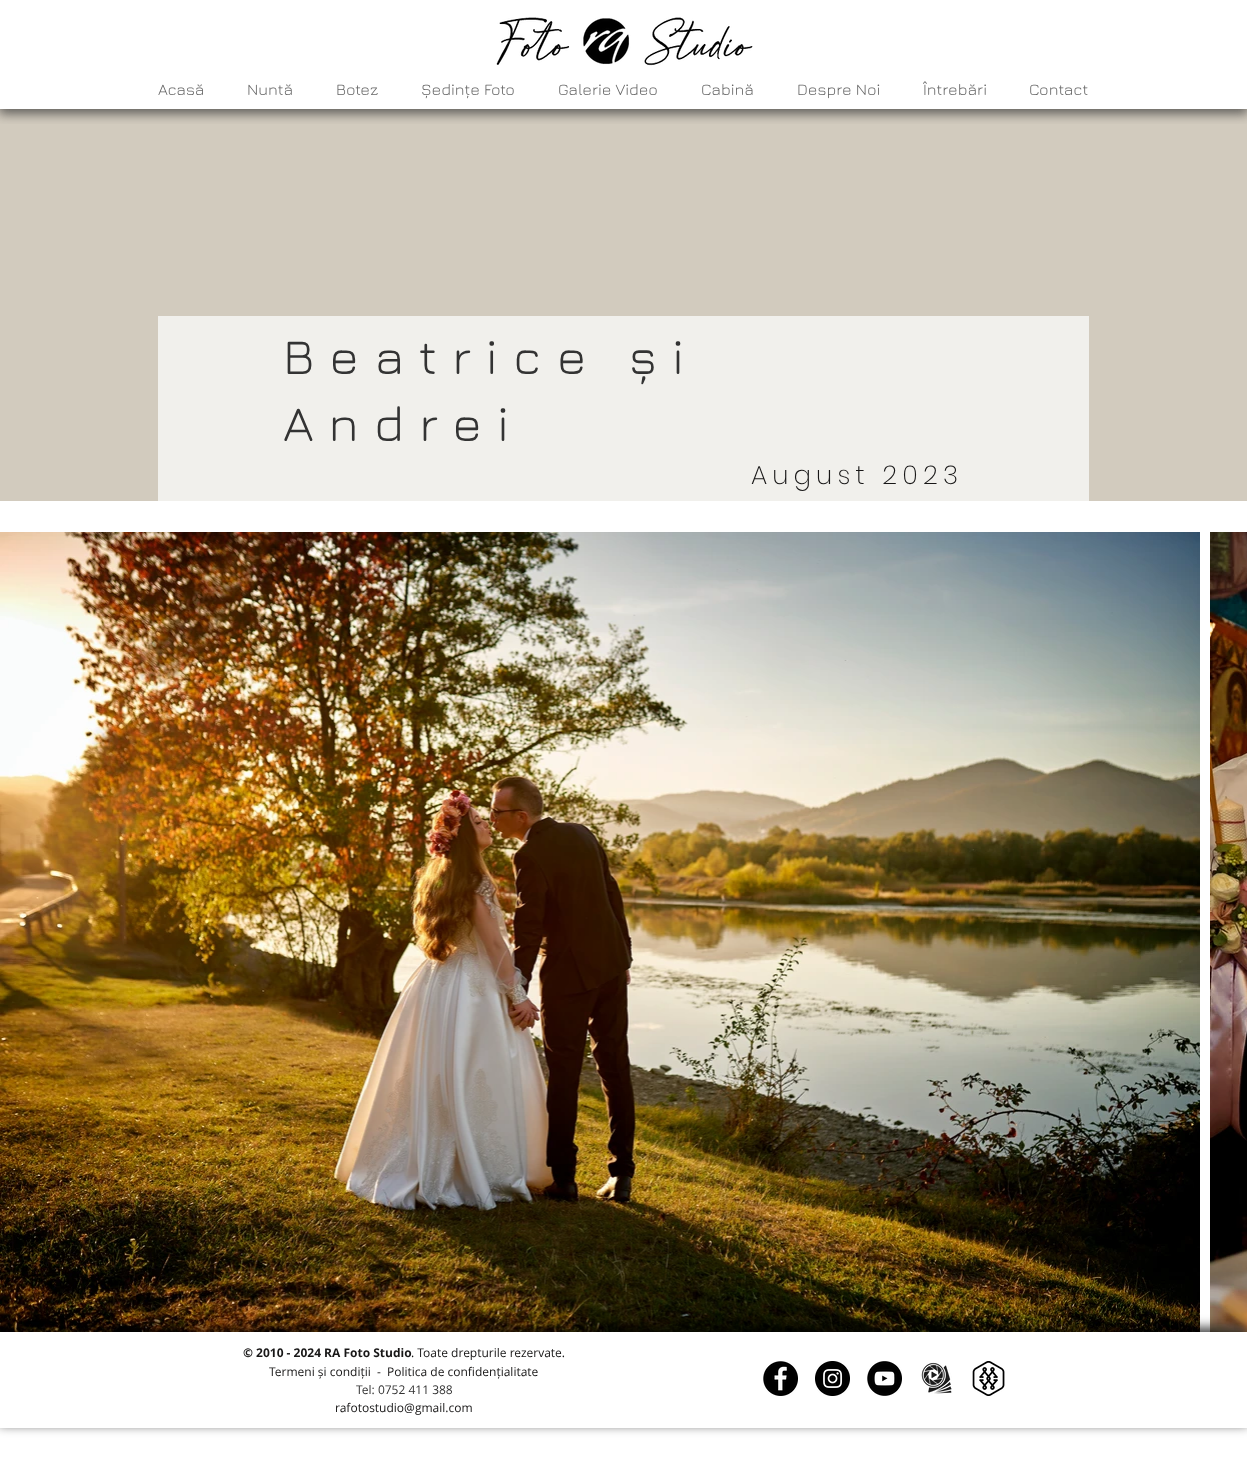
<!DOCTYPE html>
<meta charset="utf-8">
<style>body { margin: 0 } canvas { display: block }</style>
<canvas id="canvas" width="1247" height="1466"></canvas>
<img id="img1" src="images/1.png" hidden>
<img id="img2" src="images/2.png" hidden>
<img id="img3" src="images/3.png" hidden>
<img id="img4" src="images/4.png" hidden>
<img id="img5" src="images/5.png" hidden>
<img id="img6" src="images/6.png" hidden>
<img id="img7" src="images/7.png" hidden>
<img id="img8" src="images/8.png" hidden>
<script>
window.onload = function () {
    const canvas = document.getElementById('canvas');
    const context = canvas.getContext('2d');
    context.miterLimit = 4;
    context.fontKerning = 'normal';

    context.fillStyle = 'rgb(255, 255, 255)';
    context.fillRect(0, 0, 1247, 1466);
    context.fillStyle = 'rgb(210, 203, 190)';
    context.fillRect(0, 109, 1247, 392);
    context.save();
    context.beginPath();
    context.rect(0, 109, 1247, 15);
    context.clip();
    context.fillStyle = 'rgba(51, 51, 51, 0.7)';
    context.filter = 'blur(5.5px)';
    context.beginPath();
    context.rect(-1, 3, 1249, 111);
    context.fill();
    context.filter = 'none';
    context.restore();
    context.drawImage(document.getElementById('img1'), 496, 17, 257, 49);
    context.fillStyle = 'rgb(241, 240, 236)';
    context.fillRect(158, 316, 931, 185);
    context.drawImage(document.getElementById('img2'), 0, 532, 1200, 800);
    context.drawImage(document.getElementById('img3'), 1210, 532, 37, 800);
    context.save();
    context.beginPath();
    context.moveTo(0, 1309);
    context.lineTo(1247, 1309);
    context.lineTo(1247, 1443);
    context.lineTo(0, 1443);
    context.closePath();
    context.moveTo(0, 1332);
    context.lineTo(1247, 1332);
    context.lineTo(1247, 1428);
    context.lineTo(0, 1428);
    context.closePath();
    context.clip('evenodd');
    context.fillStyle = 'rgba(0, 0, 0, 0.7)';
    context.filter = 'blur(5.5px)';
    context.beginPath();
    context.rect(-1, 1327, 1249, 98);
    context.fill();
    context.filter = 'none';
    context.restore();
    context.drawImage(document.getElementById('img4'), 763, 1361, 35, 35);
    context.drawImage(document.getElementById('img5'), 815, 1361, 35, 35);
    context.drawImage(document.getElementById('img6'), 867, 1361, 35, 35);
    context.drawImage(document.getElementById('img7'), 921, 1362, 31, 32);
    context.drawImage(document.getElementById('img8'), 972, 1361, 33, 35);
    context.font = '16px Jura';
    context.fillStyle = 'rgb(102, 102, 102)';
    context.fillText('Acasă', 158, 95);
    context.fillText('Nuntă', 247, 95);
    context.fillText('Botez', 336, 95);
    context.fillText('Ședințe Foto', 421, 95);
    context.fillText('Galerie Video', 558, 95);
    context.fillText('Cabină', 701, 95);
    context.fillText('Despre Noi', 797, 95);
    context.fillText('Întrebări', 923, 95);
    context.fillText('Contact', 1029, 95);
    context.letterSpacing = '15px';
    context.font = '50px Jura';
    context.fillStyle = 'rgb(51, 51, 51)';
    context.fillText('Beatrice și', 283, 374);
    context.fillText('Andrei', 283, 441);
    context.letterSpacing = '5.25px';
    context.font = '200 26px Poppins';
    context.fillStyle = 'rgb(24, 23, 23)';
    context.fillText('August 2023', 751, 484);
    context.letterSpacing = '0px';
    context.font = 'bold 12px Open Sans';
    context.fillText('© 2010 - 2024 RA Foto Studio', 243, 1357);
    context.font = '12px Open Sans';
    context.fillText('. Toate drepturile rezervate.', 411, 1357);
    context.fillText('Termeni și condiții', 269, 1376);
    context.fillText('-', 377, 1376);
    context.fillText('Politica de confidențialitate', 387, 1376);
    context.fillStyle = 'rgb(51, 51, 51)';
    context.fillText('Tel: 0752 411 388', 356, 1394);
    context.fillStyle = 'rgb(24, 23, 23)';
    context.fillText('rafotostudio@gmail.com', 335, 1412);
};
</script>
